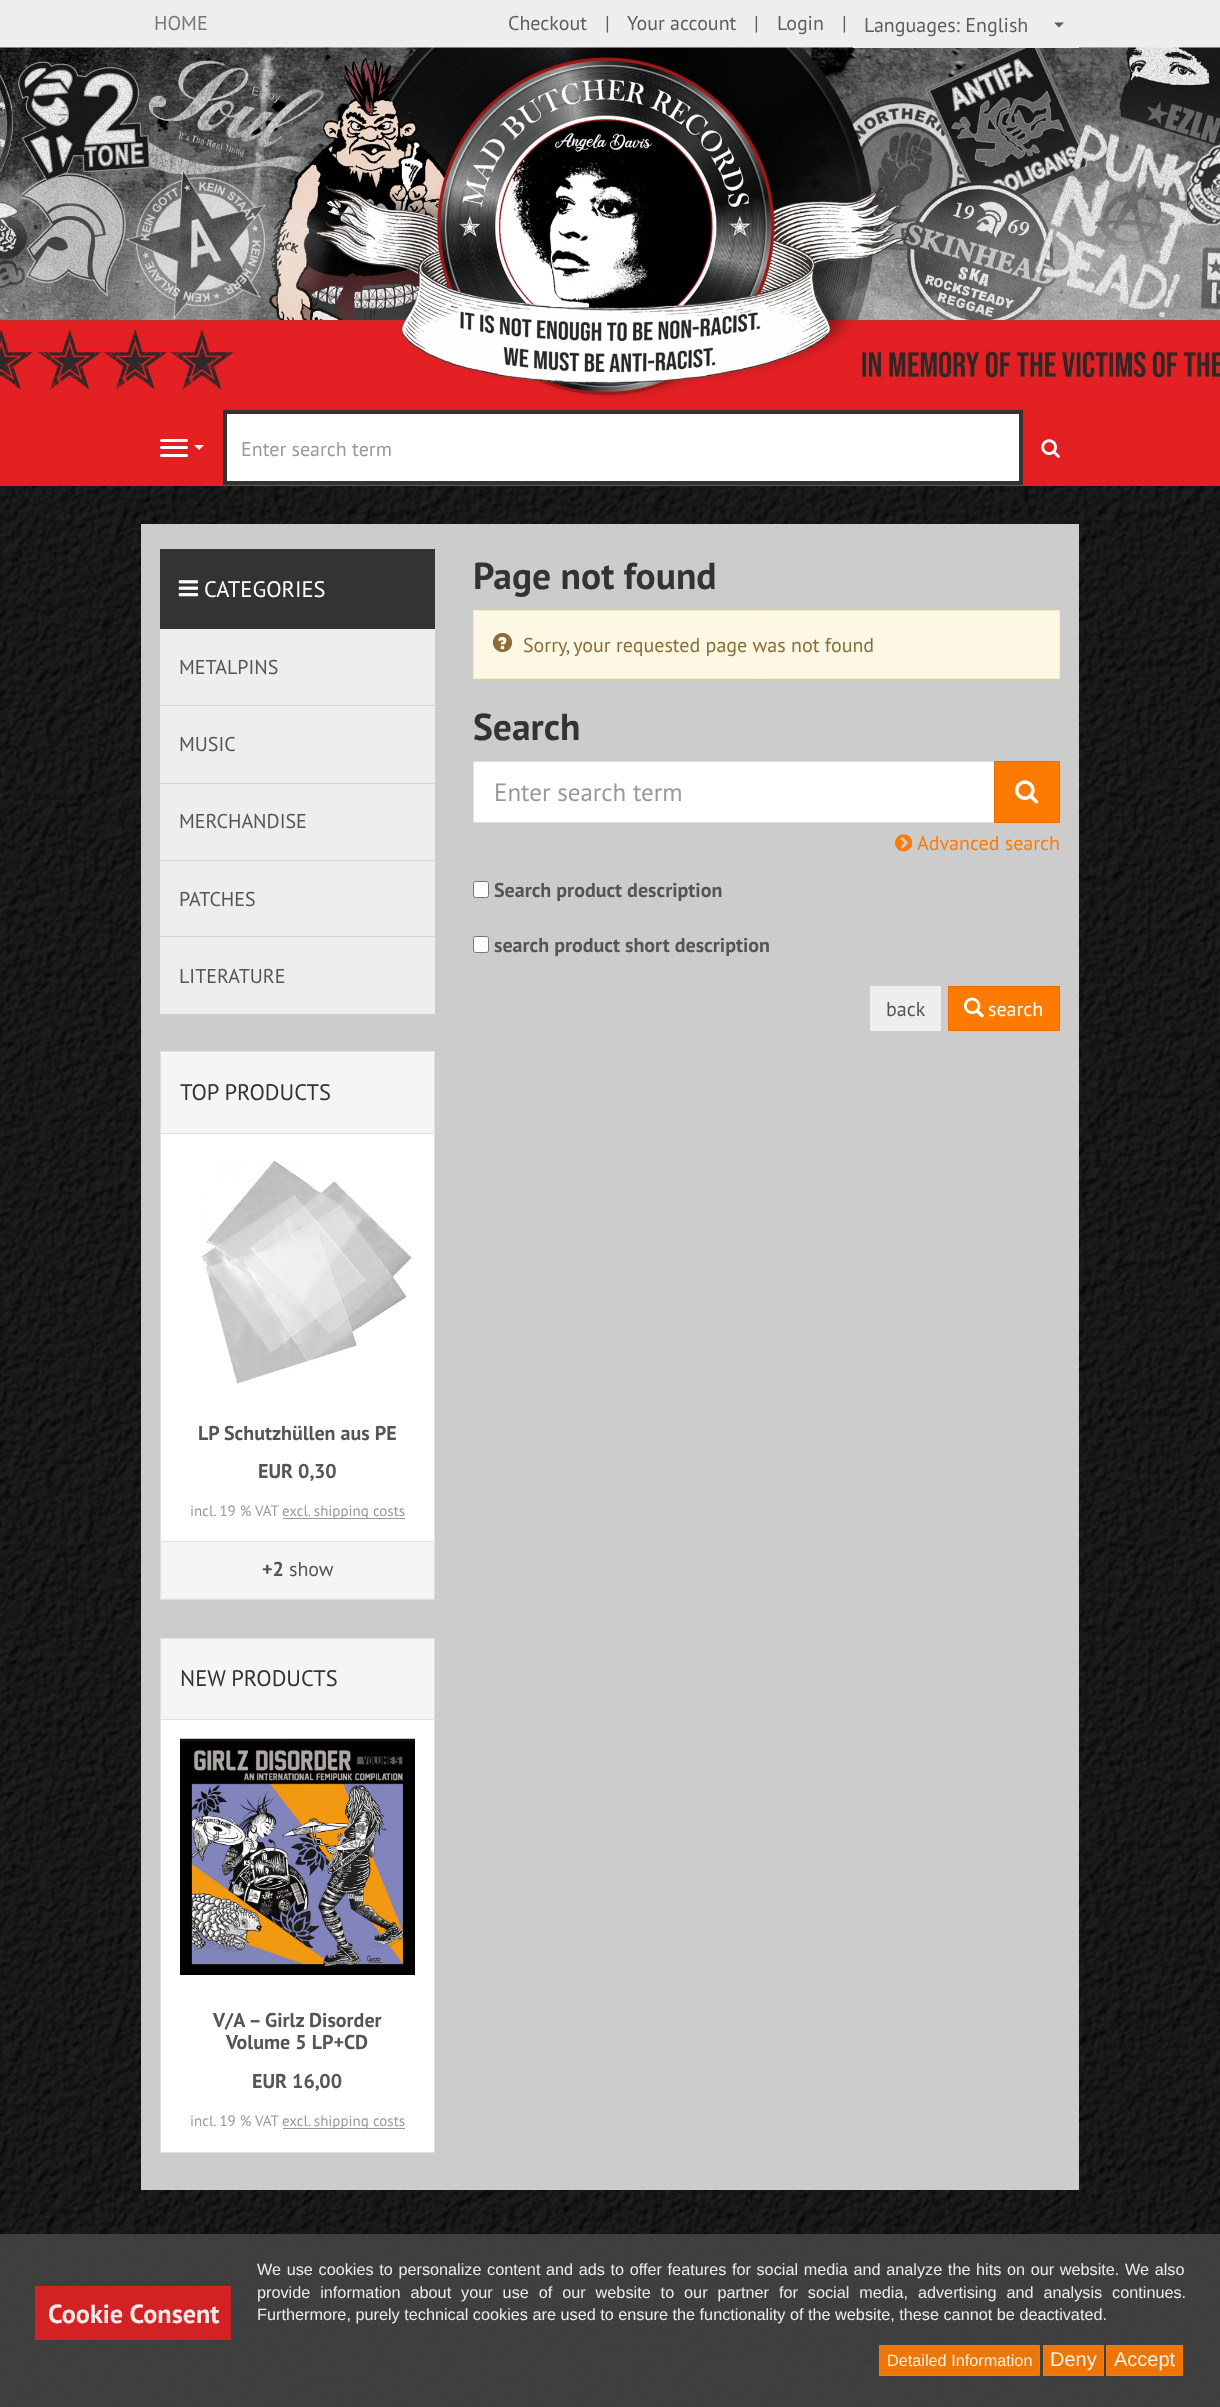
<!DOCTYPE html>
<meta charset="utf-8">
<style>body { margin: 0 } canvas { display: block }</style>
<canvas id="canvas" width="1220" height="2407"></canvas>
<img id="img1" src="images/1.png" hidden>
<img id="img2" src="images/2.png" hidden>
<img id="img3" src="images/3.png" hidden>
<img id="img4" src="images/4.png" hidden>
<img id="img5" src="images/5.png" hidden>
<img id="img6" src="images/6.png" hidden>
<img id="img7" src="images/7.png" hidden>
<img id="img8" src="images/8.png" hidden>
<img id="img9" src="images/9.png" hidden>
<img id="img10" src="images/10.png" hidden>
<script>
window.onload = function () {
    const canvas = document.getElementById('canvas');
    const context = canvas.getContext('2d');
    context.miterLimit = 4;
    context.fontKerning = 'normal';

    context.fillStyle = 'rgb(255, 255, 255)';
    context.fillRect(0, 0, 1220, 2407);
    context.drawImage(document.getElementById('img1'), 0, 486, 1220, 1921);
    context.fillStyle = 'rgb(227, 31, 33)';
    context.fillRect(0, 399, 1220, 87);
    context.fillStyle = 'rgb(238, 238, 238)';
    context.fillRect(0, 0, 1220, 48);
    context.drawImage(document.getElementById('img2'), 0, 47, 1220, 352);
    context.fillRect(853, 47, 226, 1);
    context.fillStyle = 'rgb(94, 94, 94)';
    context.beginPath();
    context.moveTo(1054, 22.5);
    context.lineTo(1064, 22.5);
    context.lineTo(1059, 27.5);
    context.closePath();
    context.fill();
    context.fillStyle = 'rgb(255, 255, 255)';
    context.beginPath();
    context.roundRect(160, 439, 28, 3, 1.5);
    context.fill();
    context.beginPath();
    context.roundRect(160, 446, 28, 3, 1.5);
    context.fill();
    context.beginPath();
    context.roundRect(160, 454, 28, 3, 1.5);
    context.fill();
    context.beginPath();
    context.moveTo(194, 445);
    context.lineTo(204, 445);
    context.lineTo(199, 450);
    context.closePath();
    context.fill();
    context.beginPath();
    context.rect(225, 412, 796, 71);
    context.fill();
    context.strokeStyle = 'rgb(51, 51, 51)';
    context.lineWidth = 4;
    context.stroke();
    context.drawImage(document.getElementById('img3'), 1041, 439, 19, 19);
    context.fillStyle = 'rgb(204, 204, 204)';
    context.fillRect(141, 524, 938, 1666);
    context.fillStyle = 'rgb(51, 51, 51)';
    context.fillRect(160, 549, 275, 80);
    context.drawImage(document.getElementById('img4'), 178, 580, 21, 17);
    context.fillStyle = 'rgb(238, 238, 238)';
    context.fillRect(160, 629, 275, 76);
    context.fillRect(160, 706, 275, 77);
    context.fillStyle = 'rgb(213, 213, 213)';
    context.fillRect(160, 705, 275, 1);
    context.fillStyle = 'rgb(238, 238, 238)';
    context.fillRect(160, 784, 275, 76);
    context.fillStyle = 'rgb(213, 213, 213)';
    context.fillRect(160, 783, 275, 1);
    context.fillStyle = 'rgb(238, 238, 238)';
    context.fillRect(160, 861, 275, 75);
    context.fillStyle = 'rgb(213, 213, 213)';
    context.fillRect(160, 860, 275, 1);
    context.fillStyle = 'rgb(238, 238, 238)';
    context.fillRect(160, 937, 275, 77);
    context.fillStyle = 'rgb(213, 213, 213)';
    context.fillRect(160, 936, 275, 1);
    context.fillStyle = 'rgb(255, 255, 255)';
    context.fillRect(161, 1052, 273, 489);
    context.strokeStyle = 'rgb(224, 224, 224)';
    context.lineWidth = 1;
    context.strokeRect(160.5, 1051.5, 274, 548);
    context.fillStyle = 'rgb(245, 245, 245)';
    context.fillRect(161, 1053, 273, 80);
    context.fillStyle = 'rgb(224, 224, 224)';
    context.fillRect(161, 1133, 273, 1);
    context.drawImage(document.getElementById('img5'), 202, 1160, 210, 224);
    context.fillStyle = 'rgb(153, 153, 153)';
    context.fillRect(283, 1518, 122, 1);
    context.fillStyle = 'rgb(245, 245, 245)';
    context.fillRect(162, 1542, 271, 56);
    context.fillStyle = 'rgb(224, 224, 224)';
    context.fillRect(161, 1541, 273, 1);
    context.fillStyle = 'rgb(238, 238, 238)';
    context.fillRect(433, 1541, 1, 58);
    context.fillRect(161, 1598, 273, 1);
    context.fillRect(161, 1541, 1, 58);
    context.fillStyle = 'rgb(255, 255, 255)';
    context.fillRect(161, 1720, 273, 432);
    context.strokeRect(160.5, 1638.5, 274, 514);
    context.fillStyle = 'rgb(245, 245, 245)';
    context.fillRect(161, 1639, 273, 80);
    context.fillStyle = 'rgb(224, 224, 224)';
    context.fillRect(161, 1719, 273, 1);
    context.drawImage(document.getElementById('img6'), 180, 1738, 235, 237);
    context.fillStyle = 'rgb(153, 153, 153)';
    context.fillRect(283, 2128, 122, 1);
    context.fillStyle = 'rgb(252, 248, 227)';
    context.beginPath();
    context.rect(473.5, 610.5, 586, 68);
    context.fill();
    context.strokeStyle = 'rgb(250, 235, 204)';
    context.stroke();
    context.drawImage(document.getElementById('img7'), 492, 632, 21, 21);
    context.fillStyle = 'rgb(255, 255, 255)';
    context.beginPath();
    context.rect(473.5, 761.5, 521, 61);
    context.fill();
    context.strokeStyle = 'rgb(224, 224, 224)';
    context.stroke();
    context.fillStyle = 'rgb(255, 122, 0)';
    context.beginPath();
    context.rect(994.5, 761.5, 65, 61);
    context.fill();
    context.strokeStyle = 'rgb(230, 110, 0)';
    context.stroke();
    context.drawImage(document.getElementById('img8'), 1015, 780, 24, 24);
    context.drawImage(document.getElementById('img9'), 895, 834, 18, 18);
    context.fillStyle = 'rgb(255, 255, 255)';
    context.beginPath();
    context.roundRect(473.5, 881.5, 15, 16, 2);
    context.fill();
    context.strokeStyle = 'rgb(118, 118, 118)';
    context.stroke();
    context.beginPath();
    context.roundRect(473.5, 936.5, 15, 16, 2);
    context.fill();
    context.stroke();
    context.fillStyle = 'rgb(238, 238, 238)';
    context.fillRect(870, 986, 71, 45);
    context.fillStyle = 'rgb(255, 122, 0)';
    context.beginPath();
    context.rect(948.5, 986.5, 111, 44);
    context.fill();
    context.strokeStyle = 'rgb(230, 110, 0)';
    context.stroke();
    context.drawImage(document.getElementById('img10'), 963, 997, 21, 21);
    context.fillStyle = 'rgba(68, 68, 68, 0.9)';
    context.fillRect(0, 2234, 1220, 173);
    context.fillStyle = 'rgba(227, 31, 33, 0.9)';
    context.fillRect(35, 2286, 196, 54);
    context.fillStyle = 'rgba(255, 124, 2, 0.9)';
    context.beginPath();
    context.rect(879.5, 2345.5, 160, 30);
    context.fill();
    context.strokeStyle = 'rgb(253, 122, 1)';
    context.stroke();
    context.fillStyle = 'rgb(236, 118, 8)';
    context.beginPath();
    context.rect(1043.5, 2345.5, 60, 30);
    context.fill();
    context.strokeStyle = 'rgb(253, 123, 1)';
    context.stroke();
    context.fillStyle = 'rgba(255, 124, 2, 0.9)';
    context.beginPath();
    context.rect(1106.5, 2345.5, 76, 30);
    context.fill();
    context.strokeStyle = 'rgb(253, 122, 1)';
    context.stroke();
    context.font = '20px PT Sans';
    context.fillStyle = 'rgb(119, 119, 119)';
    context.fillText('HOME', 154, 30);
    context.fillStyle = 'rgb(94, 94, 94)';
    context.fillText('Checkout', 508, 30);
    context.fillText('|', 605, 30);
    context.fillText('Your account', 627, 30);
    context.fillText('|', 754, 30);
    context.fillText('Login', 777, 30);
    context.fillText('|', 842, 30);
    context.fillText('Languages: English', 864, 32);
    context.fillStyle = 'rgb(153, 153, 153)';
    context.fillText('Enter search term', 241, 456);
    context.font = '22.5px PT Sans';
    context.fillStyle = 'rgb(255, 255, 255)';
    context.fillText('CATEGORIES', 204, 597);
    context.font = '20px PT Sans';
    context.fillStyle = 'rgb(85, 85, 85)';
    context.fillText('METALPINS', 179, 674);
    context.fillText('MUSIC', 179, 751);
    context.fillText('MERCHANDISE', 179, 828);
    context.fillText('PATCHES', 179, 906);
    context.fillText('LITERATURE', 179, 983);
    context.font = '22.5px PT Sans';
    context.fillStyle = 'rgb(51, 51, 51)';
    context.fillText('TOP PRODUCTS', 180, 1100);
    context.font = 'bold 20px PT Sans';
    context.fillStyle = 'rgb(85, 85, 85)';
    context.fillText('LP Schutzhüllen aus PE', 198, 1440);
    context.fillText('EUR 0,30', 258, 1478);
    context.font = '15px PT Sans';
    context.fillStyle = 'rgb(153, 153, 153)';
    context.fillText('incl. 19 % VAT', 190, 1516);
    context.fillText('excl. shipping costs', 282, 1516);
    context.font = 'bold 20px PT Sans';
    context.fillStyle = 'rgb(85, 85, 85)';
    context.fillText('+2', 262, 1576);
    context.font = '20px PT Sans';
    context.fillText('show', 289, 1576);
    context.font = '22.5px PT Sans';
    context.fillStyle = 'rgb(51, 51, 51)';
    context.fillText('NEW PRODUCTS', 180, 1686);
    context.font = 'bold 20px PT Sans';
    context.fillStyle = 'rgb(85, 85, 85)';
    context.fillText('V/A – Girlz Disorder', 213, 2027);
    context.fillText('Volume 5 LP+CD', 226, 2049);
    context.fillText('EUR 16,00', 252, 2088);
    context.font = '15px PT Sans';
    context.fillStyle = 'rgb(153, 153, 153)';
    context.fillText('incl. 19 % VAT', 190, 2126);
    context.fillText('excl. shipping costs', 282, 2126);
    context.font = 'bold 37.5px PT Sans';
    context.fillStyle = 'rgb(51, 51, 51)';
    context.fillText('Page not found', 473, 589);
    context.font = '20px PT Sans';
    context.fillStyle = 'rgb(138, 109, 59)';
    context.fillText('Sorry, your requested page was not found', 523, 652);
    context.font = 'bold 37.5px PT Sans';
    context.fillStyle = 'rgb(51, 51, 51)';
    context.fillText('Search', 473, 740);
    context.font = '25px PT Sans';
    context.fillStyle = 'rgb(153, 153, 153)';
    context.fillText('Enter search term', 494, 801);
    context.font = '20px PT Sans';
    context.fillStyle = 'rgb(255, 122, 0)';
    context.fillText('Advanced search', 917, 850);
    context.font = 'bold 20px PT Sans';
    context.fillStyle = 'rgb(85, 85, 85)';
    context.fillText('Search product description', 494, 897);
    context.fillText('search product short description', 494, 952);
    context.font = '20px PT Sans';
    context.fillText('back', 886, 1016);
    context.fillStyle = 'rgb(255, 255, 255)';
    context.fillText('search', 988, 1016);
    context.font = 'bold 26.25px PT Sans';
    context.fillStyle = 'rgb(251, 233, 233)';
    context.fillText('Cookie Consent', 48, 2323);
    context.wordSpacing = '1.1px';
    context.font = '16.25px Liberation Sans';
    context.fillStyle = 'rgb(236, 236, 236)';
    context.fillText('We use cookies to personalize content and ads to offer features for social media and analyze the hits on our website. We also', 257, 2275);
    context.wordSpacing = '5.4px';
    context.fillText('provide information about your use of our website to our partner for social media, advertising and analysis continues.', 257, 2298);
    context.wordSpacing = '0px';
    context.fillText('Furthermore, purely technical cookies are used to ensure the functionality of the website, these cannot be deactivated.', 257, 2320);
    context.fillStyle = 'rgb(253, 241, 230)';
    context.fillText('Detailed Information', 887, 2366);
    context.font = '20px Liberation Sans';
    context.fillText('Deny', 1050, 2366);
    context.fillText('Accept', 1114, 2366);
};
</script>
